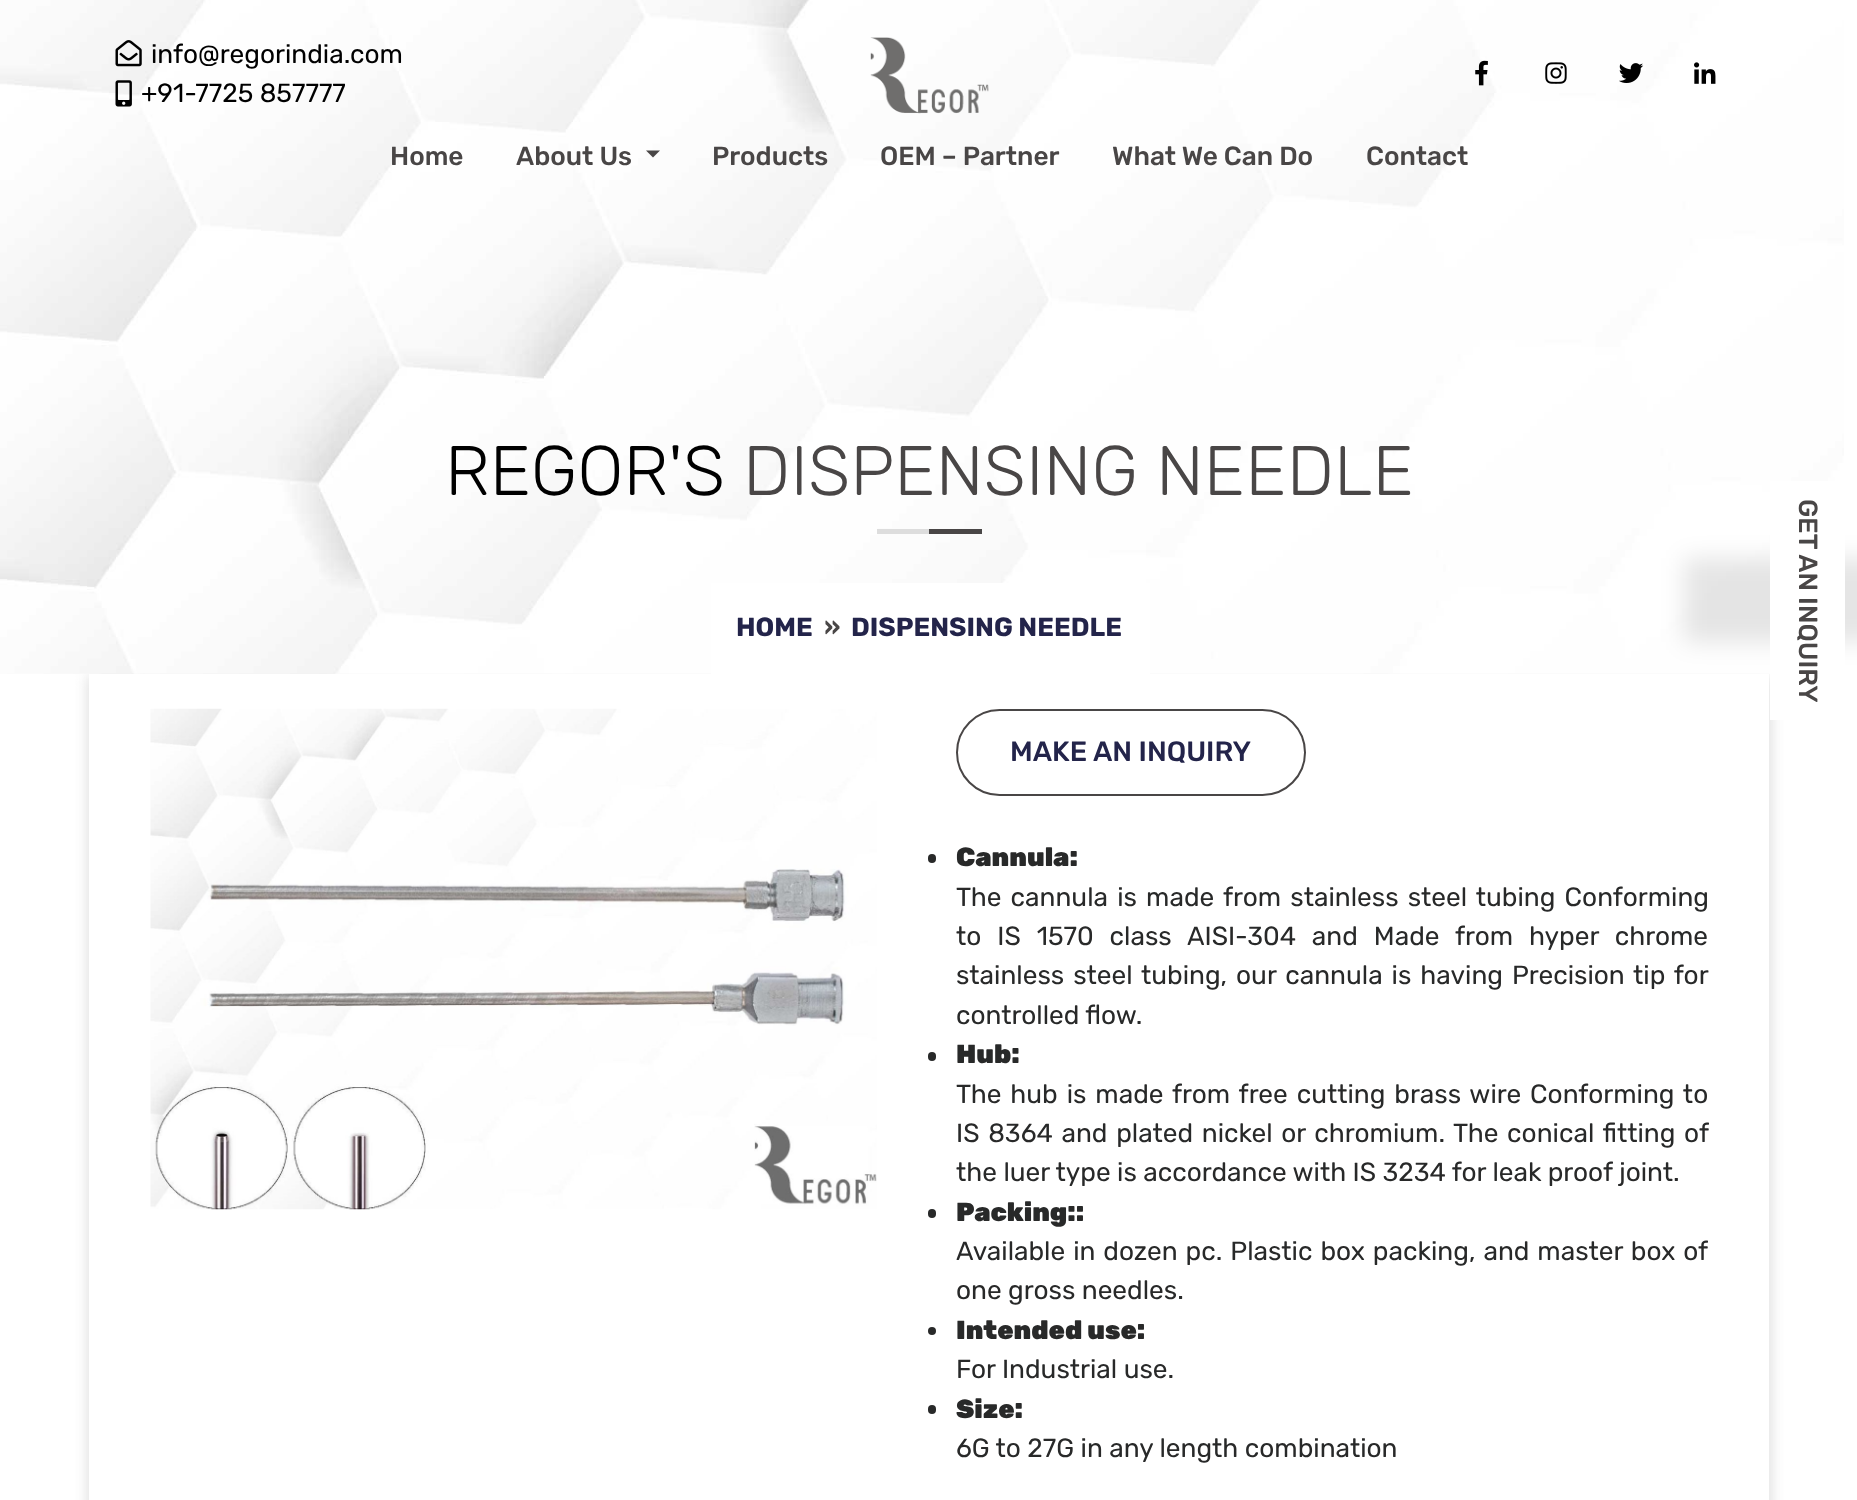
<!DOCTYPE html>
<meta charset="utf-8">
<style>body { margin: 0 } canvas { display: block }</style>
<canvas id="canvas" width="1857" height="1500"></canvas>
<img id="img1" src="images/8.png" hidden>
<img id="img2" src="images/1.png" hidden>
<img id="img3" src="images/2.png" hidden>
<img id="img4" src="images/3.png" hidden>
<img id="img5" src="images/4.png" hidden>
<img id="img6" src="images/5.png" hidden>
<img id="img7" src="images/6.png" hidden>
<img id="img8" src="images/7.png" hidden>
<img id="img9" src="images/9.png" hidden>
<script>
window.onload = function () {
    const canvas = document.getElementById('canvas');
    const context = canvas.getContext('2d');
    context.miterLimit = 4;
    context.fontKerning = 'normal';

    context.fillStyle = 'rgb(255, 255, 255)';
    context.fillRect(0, 0, 1857, 1500);
    context.save();
    context.beginPath();
    context.moveTo(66, 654);
    context.lineTo(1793, 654);
    context.lineTo(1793, 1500);
    context.lineTo(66, 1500);
    context.closePath();
    context.moveTo(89, 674);
    context.lineTo(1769, 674);
    context.lineTo(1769, 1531);
    context.lineTo(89, 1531);
    context.closePath();
    context.clip('evenodd');
    context.fillStyle = 'rgb(221, 221, 221)';
    context.filter = 'blur(7px)';
    context.beginPath();
    context.rect(88, 676, 1683, 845);
    context.fill();
    context.filter = 'none';
    context.restore();
    context.drawImage(document.getElementById('img1'), 0, 0, 1844, 674);
    context.drawImage(document.getElementById('img2'), 115, 40, 27, 27);
    context.drawImage(document.getElementById('img3'), 115, 80, 17, 27);
    context.drawImage(document.getElementById('img4'), 870, 37, 119, 77);
    context.drawImage(document.getElementById('img5'), 1475, 60, 13, 26);
    context.drawImage(document.getElementById('img6'), 1545, 62, 22, 22);
    context.drawImage(document.getElementById('img7'), 1619, 63, 25, 20);
    context.drawImage(document.getElementById('img8'), 1694, 62, 22, 22);
    context.fillStyle = 'rgb(73, 70, 70)';
    context.beginPath();
    context.moveTo(646, 150.5);
    context.lineTo(660, 150.5);
    context.lineTo(653, 157.5);
    context.closePath();
    context.fill();
    context.fillStyle = 'rgb(221, 221, 221)';
    context.fillRect(877, 529, 52, 5);
    context.fillStyle = 'rgb(73, 70, 70)';
    context.fillRect(929, 529, 53, 5);
    context.fillStyle = 'rgb(255, 255, 255)';
    context.fillRect(711, 583, 439, 91);
    context.drawImage(document.getElementById('img9'), 150, 708, 727, 502);
    context.beginPath();
    context.roundRect(957, 710, 348, 85, 42.5);
    context.strokeStyle = 'rgb(73, 70, 70)';
    context.lineWidth = 2;
    context.stroke();
    context.fillStyle = 'rgb(40, 41, 41)';
    context.beginPath();
    context.roundRect(928, 854, 8, 9, 4);
    context.fill();
    context.beginPath();
    context.roundRect(928, 1052, 8, 9, 4);
    context.fill();
    context.beginPath();
    context.roundRect(928, 1209, 8, 9, 4);
    context.fill();
    context.beginPath();
    context.arc(932, 1331, 4, 0, 2 * Math.PI);
    context.fill();
    context.beginPath();
    context.roundRect(928, 1405, 8, 9, 4);
    context.fill();
    context.fillStyle = 'rgba(0, 0, 0, 0.1)';
    context.filter = 'blur(11.5px)';
    context.beginPath();
    context.rect(1684, 558, 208, 84);
    context.fill();
    context.filter = 'none';
    context.fillStyle = 'rgb(255, 255, 255)';
    context.fillRect(1770, 481, 75, 239);
    context.font = '26.25px Rubik';
    context.fillStyle = 'rgb(0, 0, 0)';
    context.fillText('info@regorindia.com', 151, 63);
    context.fillText('+91-7725 857777', 141, 102);
    context.font = '500 26.25px Rubik';
    context.fillStyle = 'rgb(73, 70, 70)';
    context.fillText('Home', 390, 165);
    context.fillText('About Us', 516, 165);
    context.fillText('Products', 712, 165);
    context.fillText('OEM – Partner', 880, 165);
    context.fillText('What We Can Do', 1112, 165);
    context.fillText('Contact', 1366, 165);
    context.font = '300 70px Rubik';
    context.fillStyle = 'rgb(0, 0, 0)';
    context.fillText('REGOR\'S', 445, 495);
    context.fillStyle = 'rgb(73, 70, 70)';
    context.fillText('DISPENSING NEEDLE', 743, 495);
    context.font = 'bold 26.25px Rubik';
    context.fillStyle = 'rgb(35, 36, 74)';
    context.fillText('HOME', 736, 636);
    context.fillStyle = 'rgb(73, 70, 70)';
    context.fillText('»', 824, 636);
    context.fillStyle = 'rgb(35, 36, 74)';
    context.fillText('DISPENSING NEEDLE', 851, 636);
    context.font = '500 28px Rubik';
    context.fillText('MAKE AN INQUIRY', 1010, 761);
    context.font = '900 26.25px Rubik';
    context.fillStyle = 'rgb(40, 41, 41)';
    context.fillText('Cannula:', 956, 866);
    context.wordSpacing = '2.75px';
    context.font = '26.25px Rubik';
    context.fillText('The cannula is made from stainless steel tubing Conforming', 956, 906);
    context.wordSpacing = '9.5px';
    context.fillText('to IS 1570 class AISI-304 and Made from hyper chrome', 956, 945);
    context.wordSpacing = '2.5px';
    context.fillText('stainless steel tubing, our cannula is having Precision tip for', 956, 984);
    context.wordSpacing = '0px';
    context.fillText('controlled flow.', 956, 1024);
    context.font = '900 26.25px Rubik';
    context.fillText('Hub:', 956, 1063);
    context.wordSpacing = '2.5px';
    context.font = '26.25px Rubik';
    context.fillText('The hub is made from free cutting brass wire Conforming to', 956, 1103);
    context.wordSpacing = '2.25px';
    context.fillText('IS 8364 and plated nickel or chromium. The conical fitting of', 956, 1142);
    context.wordSpacing = '0px';
    context.fillText('the luer type is accordance with IS 3234 for leak proof joint.', 956, 1181);
    context.font = '900 26.25px Rubik';
    context.fillText('Packing::', 956, 1221);
    context.wordSpacing = '1.5px';
    context.font = '26.25px Rubik';
    context.fillText('Available in dozen pc. Plastic box packing, and master box of', 956, 1260);
    context.wordSpacing = '0px';
    context.fillText('one gross needles.', 956, 1299);
    context.font = '900 26.25px Rubik';
    context.fillText('Intended use:', 956, 1339);
    context.font = '26.25px Rubik';
    context.fillText('For Industrial use.', 956, 1378);
    context.font = '900 26.25px Rubik';
    context.fillText('Size:', 956, 1418);
    context.font = '26.25px Rubik';
    context.fillText('6G to 27G in any length combination', 956, 1457);
    context.font = '500 26.25px Rubik';
    context.fillStyle = 'rgb(73, 70, 70)';
    context.save();
    context.translate(1799, 499);
    context.rotate(90 * Math.PI / 180);
    context.fillText('GET AN INQUIRY', 0, 0);
    context.restore();
};
</script>
